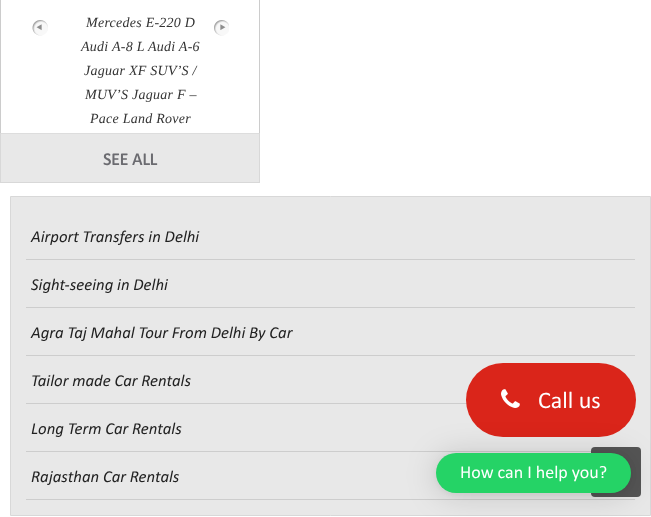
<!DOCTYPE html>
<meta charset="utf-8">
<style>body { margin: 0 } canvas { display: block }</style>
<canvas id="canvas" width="651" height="517"></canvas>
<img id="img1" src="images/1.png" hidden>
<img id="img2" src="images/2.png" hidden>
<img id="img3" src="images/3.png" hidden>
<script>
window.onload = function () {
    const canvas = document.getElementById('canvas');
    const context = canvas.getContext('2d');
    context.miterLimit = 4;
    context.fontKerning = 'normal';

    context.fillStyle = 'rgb(255, 255, 255)';
    context.fillRect(0, 0, 651, 517);
    context.strokeStyle = 'rgb(204, 204, 204)';
    context.strokeRect(0.5, -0.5, 259, 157);
    context.drawImage(document.getElementById('img1'), 32, 20, 16, 16);
    context.drawImage(document.getElementById('img2'), 214, 20, 15, 16);
    context.fillStyle = 'rgb(232, 232, 232)';
    context.fillRect(1, 134, 258, 48);
    context.fillStyle = 'rgb(221, 221, 221)';
    context.fillRect(0, 133, 260, 1);
    context.fillStyle = 'rgb(216, 216, 216)';
    context.fillRect(259, 133, 1, 50);
    context.fillRect(0, 182, 260, 1);
    context.fillRect(0, 133, 1, 50);
    context.fillStyle = 'rgb(232, 232, 232)';
    context.beginPath();
    context.rect(10.5, 196.5, 640, 319);
    context.fill();
    context.strokeStyle = 'rgb(216, 216, 216)';
    context.stroke();
    context.fillStyle = 'rgb(205, 205, 205)';
    context.fillRect(26, 259, 609, 1);
    context.fillRect(26, 307, 609, 1);
    context.fillRect(26, 355, 609, 1);
    context.fillRect(26, 403, 441, 1);
    context.fillRect(26, 451, 565, 1);
    context.fillRect(26, 499, 609, 1);
    context.fillStyle = 'rgb(218, 37, 26)';
    context.beginPath();
    context.roundRect(466, 363, 170, 74, 37);
    context.fill();
    context.drawImage(document.getElementById('img3'), 501, 389, 19, 19);
    context.fillStyle = 'rgb(85, 85, 85)';
    context.beginPath();
    context.roundRect(591, 447, 50, 50, 4);
    context.fill();
    context.fillStyle = 'rgba(0, 0, 0, 0.16)';
    context.filter = 'blur(16px)';
    context.beginPath();
    context.roundRect(436, 455, 195, 40, 20);
    context.fill();
    context.filter = 'none';
    context.fillStyle = 'rgba(0, 0, 0, 0.06)';
    context.filter = 'blur(3px)';
    context.beginPath();
    context.roundRect(436, 454, 195, 40, 20);
    context.fill();
    context.filter = 'none';
    context.fillStyle = 'rgb(37, 211, 102)';
    context.beginPath();
    context.roundRect(436, 453, 195, 40, 20);
    context.fill();
    context.letterSpacing = '0.25px';
    context.font = 'italic 14px Liberation Serif';
    context.fillStyle = 'rgb(51, 51, 51)';
    context.fillText('Mercedes E-220 D', 86, 27);
    context.fillText('Audi A-8 L Audi A-6', 81, 51);
    context.fillText('Jaguar XF SUV’S /', 84, 75);
    context.fillText('MUV’S Jaguar F –', 85, 99);
    context.fillText('Pace Land Rover', 90, 123);
    context.letterSpacing = '0px';
    context.font = 'bold 17.5px Calibri';
    context.fillStyle = 'rgb(107, 107, 112)';
    context.fillText('SEE ALL', 103, 165);
    context.font = 'italic 16.75px Calibri';
    context.fillStyle = 'rgb(34, 34, 34)';
    context.fillText('Airport Transfers in Delhi', 31, 242);
    context.fillText('Sight-seeing in Delhi', 31, 290);
    context.fillText('Agra Taj Mahal Tour From Delhi By Car', 31, 338);
    context.fillText('Tailor made Car Rentals', 31, 386);
    context.fillText('Long Term Car Rentals', 31, 434);
    context.fillText('Rajasthan Car Rentals', 31, 482);
    context.font = '24px Calibri';
    context.fillStyle = 'rgb(255, 255, 255)';
    context.fillText('Call us', 538, 408);
    context.font = '18px Calibri';
    context.fillText('How can I help you?', 460, 478);
};
</script>
